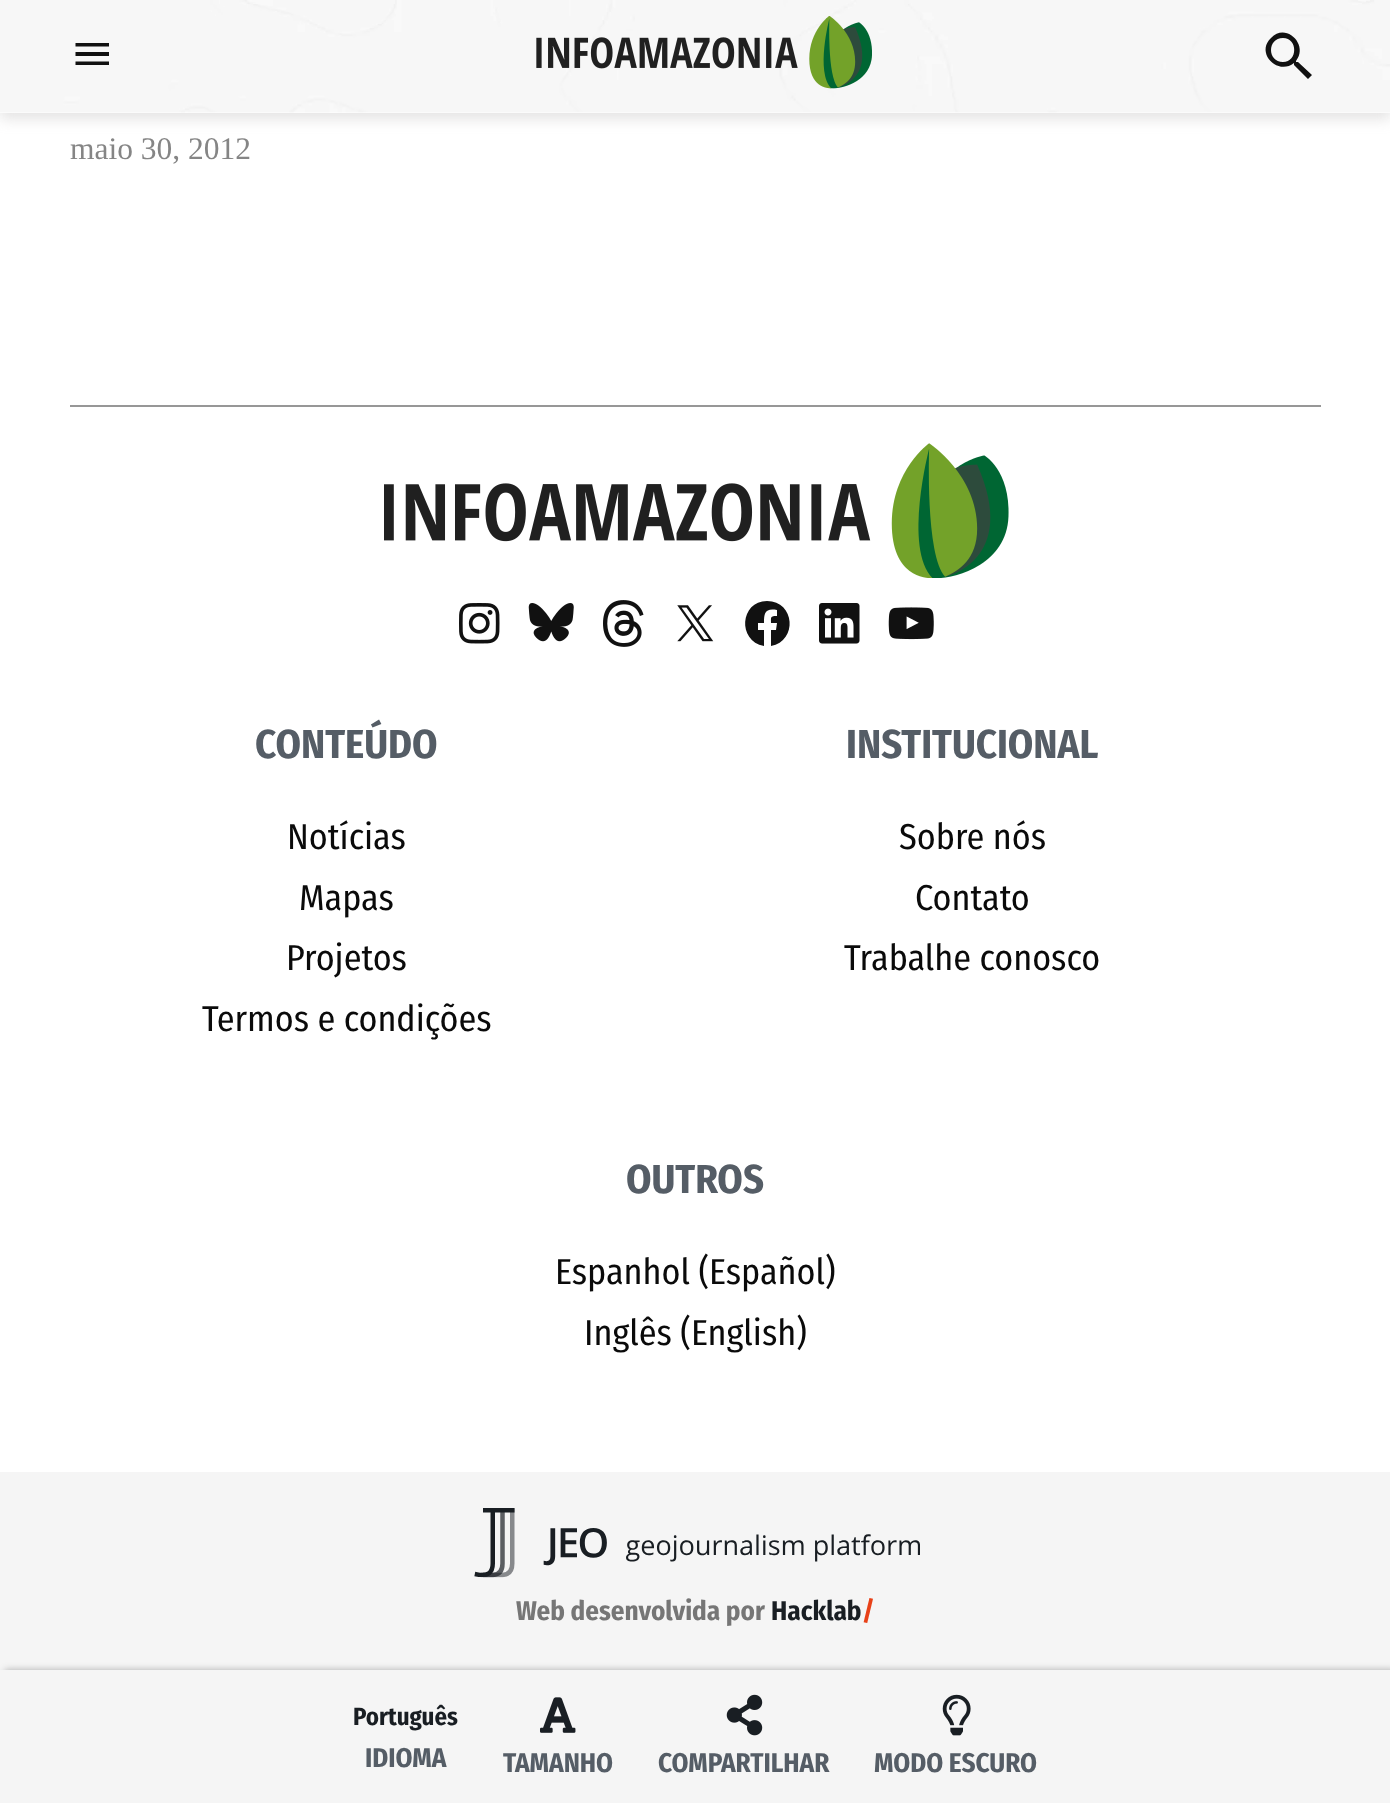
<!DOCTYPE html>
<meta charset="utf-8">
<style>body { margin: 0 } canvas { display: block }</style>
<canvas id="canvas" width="1390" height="1803"></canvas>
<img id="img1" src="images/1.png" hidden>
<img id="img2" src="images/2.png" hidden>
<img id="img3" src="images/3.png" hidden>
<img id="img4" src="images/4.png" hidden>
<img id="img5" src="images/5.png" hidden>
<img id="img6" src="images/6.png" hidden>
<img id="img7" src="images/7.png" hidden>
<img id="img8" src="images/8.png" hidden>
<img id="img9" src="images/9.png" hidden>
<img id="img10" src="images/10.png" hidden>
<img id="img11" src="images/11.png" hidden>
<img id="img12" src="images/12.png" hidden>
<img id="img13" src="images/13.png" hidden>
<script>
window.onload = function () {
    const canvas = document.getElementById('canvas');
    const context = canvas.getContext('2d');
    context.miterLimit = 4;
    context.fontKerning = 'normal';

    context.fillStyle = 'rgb(255, 255, 255)';
    context.fillRect(0, 0, 1390, 1803);
    context.fillStyle = 'rgba(166, 163, 163, 0.3)';
    context.filter = 'blur(7px)';
    context.beginPath();
    context.rect(0, 7, 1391, 112);
    context.fill();
    context.filter = 'none';
    context.fillStyle = 'rgb(255, 255, 255)';
    context.fillRect(0, 0, 1390, 113);
    context.drawImage(document.getElementById('img1'), 0, 0, 1390, 113);
    context.fillStyle = 'rgb(17, 17, 17)';
    context.beginPath();
    context.moveTo(75.5, 65);
    context.lineTo(109, 65);
    context.lineTo(109, 61.5);
    context.lineTo(75.5, 61.5);
    context.closePath();
    context.moveTo(75.5, 56);
    context.lineTo(109, 56);
    context.lineTo(109, 52);
    context.lineTo(75.5, 52);
    context.closePath();
    context.moveTo(75.5, 43);
    context.lineTo(75.5, 46.5);
    context.lineTo(109, 46.5);
    context.lineTo(109, 43);
    context.closePath();
    context.fill();
    context.drawImage(document.getElementById('img2'), 536, 16, 336, 73);
    context.beginPath();
    context.moveTo(1298, 62);
    context.lineTo(1296, 62);
    context.lineTo(1296, 61);
    context.bezierCurveTo(1309, 45, 1286, 22, 1271, 38);
    context.bezierCurveTo(1255, 53, 1278, 76, 1294, 63);
    context.lineTo(1294, 65);
    context.lineTo(1308, 79);
    context.lineTo(1312, 75);
    context.closePath();
    context.moveTo(1283, 62);
    context.bezierCurveTo(1267, 62, 1267, 38, 1283, 38);
    context.bezierCurveTo(1298, 38, 1298, 62, 1283, 62);
    context.closePath();
    context.fill();
    context.fillStyle = 'rgb(151, 151, 151)';
    context.fillRect(70, 405, 1251, 2);
    context.drawImage(document.getElementById('img3'), 384, 443, 625, 135);
    context.drawImage(document.getElementById('img4'), 459, 603, 41, 41);
    context.drawImage(document.getElementById('img5'), 528, 603, 46, 39);
    context.drawImage(document.getElementById('img6'), 603, 600, 41, 47);
    context.drawImage(document.getElementById('img7'), 677, 605, 37, 37);
    context.fillStyle = 'rgb(17, 17, 17)';
    context.beginPath();
    context.moveTo(767, 601);
    context.bezierCurveTo(740, 601, 737, 641, 764, 646);
    context.lineTo(764, 630);
    context.lineTo(758, 630);
    context.lineTo(758, 623);
    context.lineTo(764, 623);
    context.bezierCurveTo(764, 613, 765, 608, 777, 610);
    context.lineTo(777, 616);
    context.bezierCurveTo(770, 616, 771, 617, 771, 623);
    context.lineTo(777, 623);
    context.lineTo(776, 630);
    context.lineTo(771, 630);
    context.lineTo(771, 646);
    context.bezierCurveTo(798, 641, 795, 601, 767, 601);
    context.closePath();
    context.fill();
    context.drawImage(document.getElementById('img8'), 819, 603, 41, 41);
    context.drawImage(document.getElementById('img9'), 888, 607, 46, 33);
    context.fillStyle = 'rgb(245, 245, 245)';
    context.fillRect(0, 1472, 1390, 198);
    context.drawImage(document.getElementById('img10'), 474, 1508, 446, 70);
    context.fillStyle = 'rgba(0, 0, 0, 0.3)';
    context.filter = 'blur(3.5px)';
    context.beginPath();
    context.rect(5, 1670, 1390, 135);
    context.fill();
    context.filter = 'none';
    context.fillStyle = 'rgb(245, 245, 245)';
    context.fillRect(0, 1670, 1390, 133);
    context.drawImage(document.getElementById('img11'), 540, 1697, 36, 36);
    context.drawImage(document.getElementById('img12'), 726, 1694, 37, 42);
    context.drawImage(document.getElementById('img13'), 942, 1694, 29, 42);
    context.font = '31.5px Liberation Serif';
    context.fillStyle = 'rgb(133, 133, 133)';
    context.fillText('maio 30, 2012', 70, 159);
    context.font = 'bold 40.5px Fira Sans Condensed';
    context.fillStyle = 'rgb(85, 93, 102)';
    context.fillText('CONTEÚDO', 255, 758);
    context.font = '36px Fira Sans Condensed';
    context.fillStyle = 'rgb(10, 10, 10)';
    context.fillText('Notícias', 287, 849);
    context.fillText('Mapas', 299, 910);
    context.fillText('Projetos', 286, 970);
    context.fillText('Termos e condições', 202, 1031);
    context.font = 'bold 40.5px Fira Sans Condensed';
    context.fillStyle = 'rgb(85, 93, 102)';
    context.fillText('INSTITUCIONAL', 846, 758);
    context.font = '36px Fira Sans Condensed';
    context.fillStyle = 'rgb(10, 10, 10)';
    context.fillText('Sobre nós', 899, 849);
    context.fillText('Contato', 915, 910);
    context.fillText('Trabalhe conosco', 844, 970);
    context.font = 'bold 40.5px Fira Sans Condensed';
    context.fillStyle = 'rgb(85, 93, 102)';
    context.fillText('OUTROS', 626, 1193);
    context.font = '36px Fira Sans Condensed';
    context.fillStyle = 'rgb(10, 10, 10)';
    context.fillText('Espanhol (Español)', 555, 1284);
    context.fillText('Inglês (English)', 584, 1345);
    context.font = 'bold 27px Fira Sans Condensed';
    context.fillStyle = 'rgb(118, 118, 118)';
    context.fillText('Web desenvolvida por', 516, 1620);
    context.fillStyle = 'rgb(25, 30, 35)';
    context.fillText('Hacklab', 771, 1620);
    context.fillStyle = 'rgb(232, 65, 24)';
    context.fillText('/', 862, 1620);
    context.font = 'bold 24.75px Fira Sans Condensed';
    context.fillStyle = 'rgb(25, 30, 35)';
    context.fillText('Português', 353, 1725);
    context.font = 'bold 27px Fira Sans Condensed';
    context.fillStyle = 'rgb(85, 93, 102)';
    context.fillText('IDIOMA', 365, 1767);
    context.fillText('TAMANHO', 503, 1772);
    context.fillText('COMPARTILHAR', 658, 1772);
    context.fillText('MODO ESCURO', 874, 1772);
};
</script>
